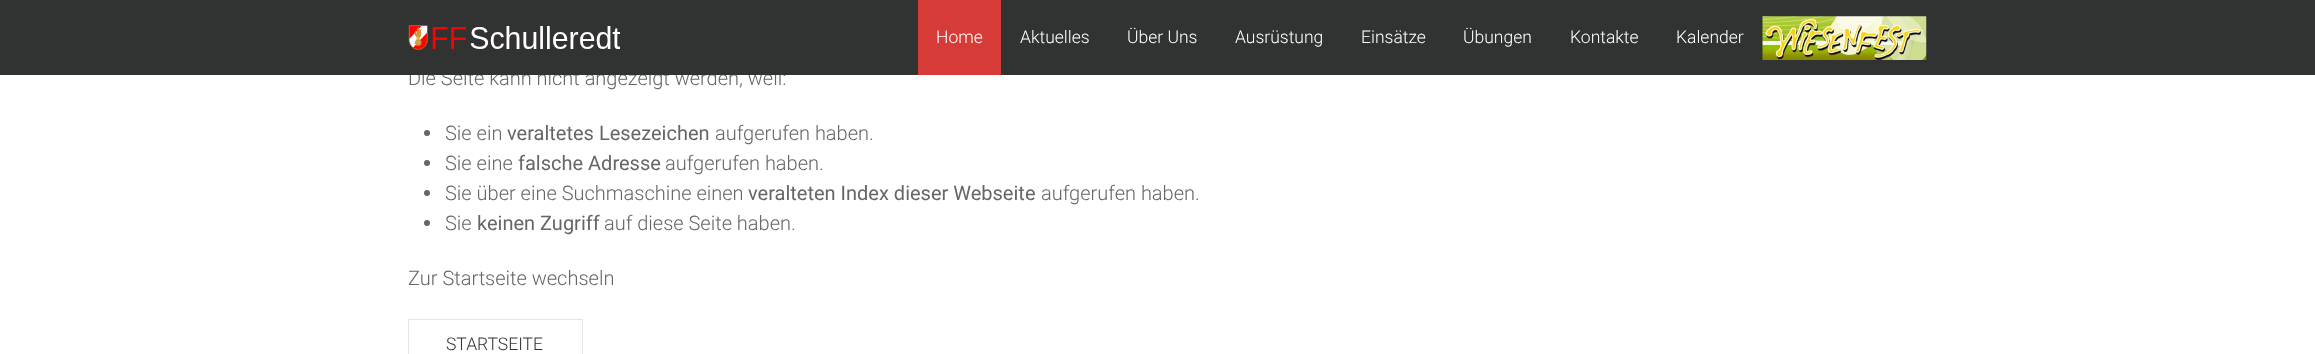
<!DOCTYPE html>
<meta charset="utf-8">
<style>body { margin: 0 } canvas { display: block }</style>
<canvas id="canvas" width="2315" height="354"></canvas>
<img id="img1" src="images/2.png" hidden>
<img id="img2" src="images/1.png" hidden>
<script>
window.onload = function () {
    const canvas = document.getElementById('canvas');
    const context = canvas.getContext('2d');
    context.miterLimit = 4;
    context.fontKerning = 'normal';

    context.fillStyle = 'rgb(255, 255, 255)';
    context.fillRect(0, 0, 2315, 354);
    context.fillStyle = 'rgb(102, 102, 102)';
    context.beginPath();
    context.arc(427, 133, 3, 0, 2 * Math.PI);
    context.fill();
    context.beginPath();
    context.arc(427, 163, 3, 0, 2 * Math.PI);
    context.fill();
    context.beginPath();
    context.arc(427, 193, 3, 0, 2 * Math.PI);
    context.fill();
    context.beginPath();
    context.arc(427, 223, 3, 0, 2 * Math.PI);
    context.fill();
    context.strokeStyle = 'rgb(229, 229, 229)';
    context.strokeRect(408.5, 319.5, 174, 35);
    context.font = '300 20px Roboto';
    context.fillText('Die Seite kann nicht angezeigt werden, weil:', 408, 85);
    context.fillStyle = 'rgb(49, 50, 50)';
    context.fillRect(0, 0, 2315, 75);
    context.drawImage(document.getElementById('img1'), 1762, 16, 165, 44);
    context.font = '300 17.5px Roboto';
    context.fillStyle = 'rgb(255, 255, 255)';
    context.fillText('Kalender', 1676, 43);
    context.fillText('Kontakte', 1570, 43);
    context.fillText('Übungen', 1463, 43);
    context.fillText('Einsätze', 1361, 43);
    context.fillText('Ausrüstung', 1235, 43);
    context.fillText('Über Uns', 1127, 43);
    context.fillText('Aktuelles', 1020, 43);
    context.fillStyle = 'rgb(214, 59, 55)';
    context.fillRect(918, 0, 83, 75);
    context.fillStyle = 'rgb(255, 255, 255)';
    context.fillText('Home', 936, 43);
    context.drawImage(document.getElementById('img2'), 408, 25, 212, 25);
    context.font = '300 20px Roboto';
    context.fillStyle = 'rgb(102, 102, 102)';
    context.fillText('Sie ein', 445, 140);
    context.font = '20px Roboto';
    context.fillText('veraltetes Lesezeichen', 507, 140);
    context.font = '300 20px Roboto';
    context.fillText('aufgerufen haben.', 715, 140);
    context.fillText('Sie eine', 445, 170);
    context.font = '20px Roboto';
    context.fillText('falsche Adresse', 518, 170);
    context.font = '300 20px Roboto';
    context.fillText('aufgerufen haben.', 665, 170);
    context.fillText('Sie über eine Suchmaschine einen', 445, 200);
    context.font = '20px Roboto';
    context.fillText('veralteten Index dieser Webseite', 748, 200);
    context.font = '300 20px Roboto';
    context.fillText('aufgerufen haben.', 1041, 200);
    context.fillText('Sie', 445, 230);
    context.font = '20px Roboto';
    context.fillText('keinen Zugriff', 477, 230);
    context.font = '300 20px Roboto';
    context.fillText('auf diese Seite haben.', 604, 230);
    context.fillText('Zur Startseite wechseln', 408, 285);
    context.font = '300 17.5px Roboto';
    context.fillStyle = 'rgb(51, 51, 51)';
    context.fillText('STARTSEITE', 446, 350);
};
</script>
